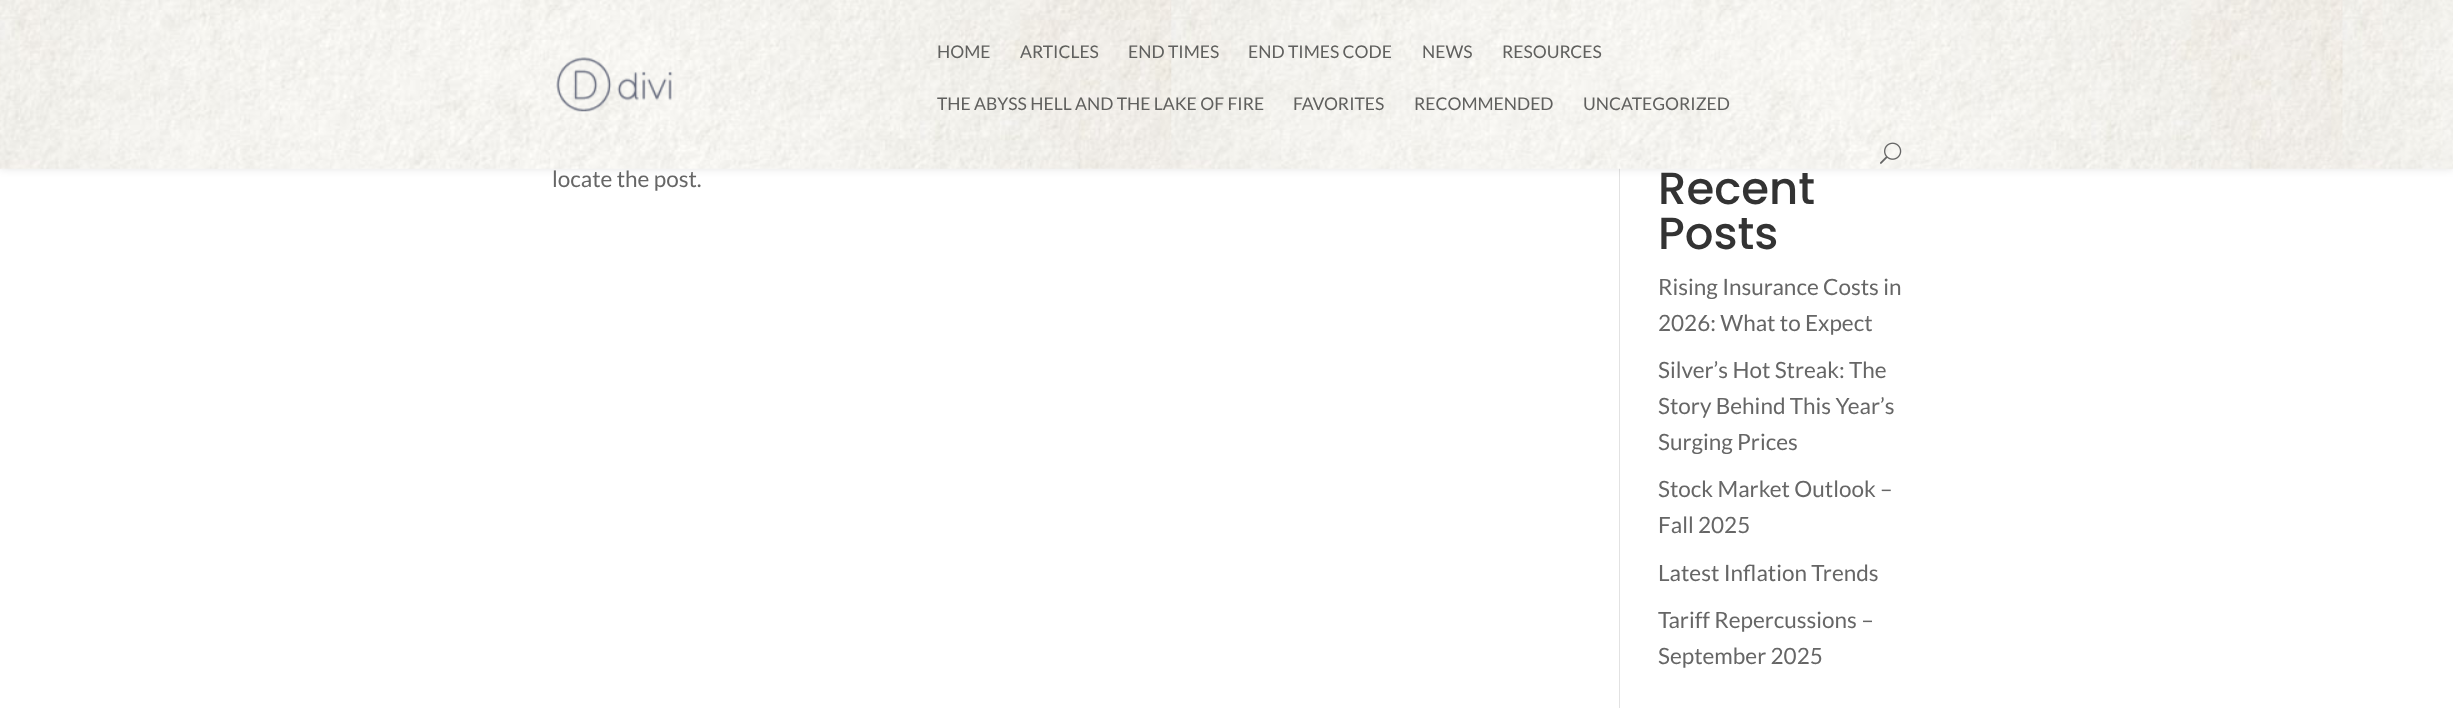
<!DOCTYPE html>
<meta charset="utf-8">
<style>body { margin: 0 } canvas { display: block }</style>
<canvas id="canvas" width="2453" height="708"></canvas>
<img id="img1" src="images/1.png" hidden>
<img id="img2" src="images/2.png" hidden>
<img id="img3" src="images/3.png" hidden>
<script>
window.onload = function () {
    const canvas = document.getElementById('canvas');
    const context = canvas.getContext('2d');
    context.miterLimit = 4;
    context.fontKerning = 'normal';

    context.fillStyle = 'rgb(255, 255, 255)';
    context.fillRect(0, 0, 2453, 708);
    context.fillStyle = 'rgb(226, 226, 226)';
    context.fillRect(1619, 168, 1, 540);
    context.fillStyle = 'rgba(0, 0, 0, 0.1)';
    context.filter = 'blur(4.5px)';
    context.beginPath();
    context.rect(0, 0, 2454, 169);
    context.fill();
    context.filter = 'none';
    context.drawImage(document.getElementById('img1'), 0, 0, 2453, 169);
    context.drawImage(document.getElementById('img2'), 556, 57, 117, 55);
    context.drawImage(document.getElementById('img3'), 1880, 142, 22, 22);
    context.font = '17.5px Lato';
    context.fillStyle = 'rgb(96, 96, 94)';
    context.fillText('HOME', 937, 58);
    context.fillText('ARTICLES', 1020, 58);
    context.fillText('END TIMES', 1128, 58);
    context.fillText('END TIMES CODE', 1248, 58);
    context.fillText('NEWS', 1422, 58);
    context.fillText('RESOURCES', 1502, 58);
    context.fillText('THE ABYSS HELL AND THE LAKE OF FIRE', 937, 110);
    context.fillText('FAVORITES', 1293, 110);
    context.fillText('RECOMMENDED', 1414, 110);
    context.fillText('UNCATEGORIZED', 1583, 110);
    context.font = '22.5px Lato';
    context.fillStyle = 'rgb(102, 102, 102)';
    context.fillText('locate the post.', 552, 187);
    context.font = '500 45px Poppins';
    context.fillStyle = 'rgb(51, 51, 51)';
    context.fillText('Recent', 1658, 204);
    context.fillText('Posts', 1658, 249);
    context.font = '22.5px Lato';
    context.fillStyle = 'rgb(102, 102, 102)';
    context.fillText('Rising Insurance Costs in', 1658, 295);
    context.fillText('2026: What to Expect', 1658, 331);
    context.fillText('Silver’s Hot Streak: The', 1658, 378);
    context.fillText('Story Behind This Year’s', 1658, 414);
    context.fillText('Surging Prices', 1658, 450);
    context.fillText('Stock Market Outlook –', 1658, 497);
    context.fillText('Fall 2025', 1658, 533);
    context.fillText('Latest Inflation Trends', 1658, 581);
    context.fillText('Tariff Repercussions –', 1658, 628);
    context.fillText('September 2025', 1658, 664);
};
</script>
